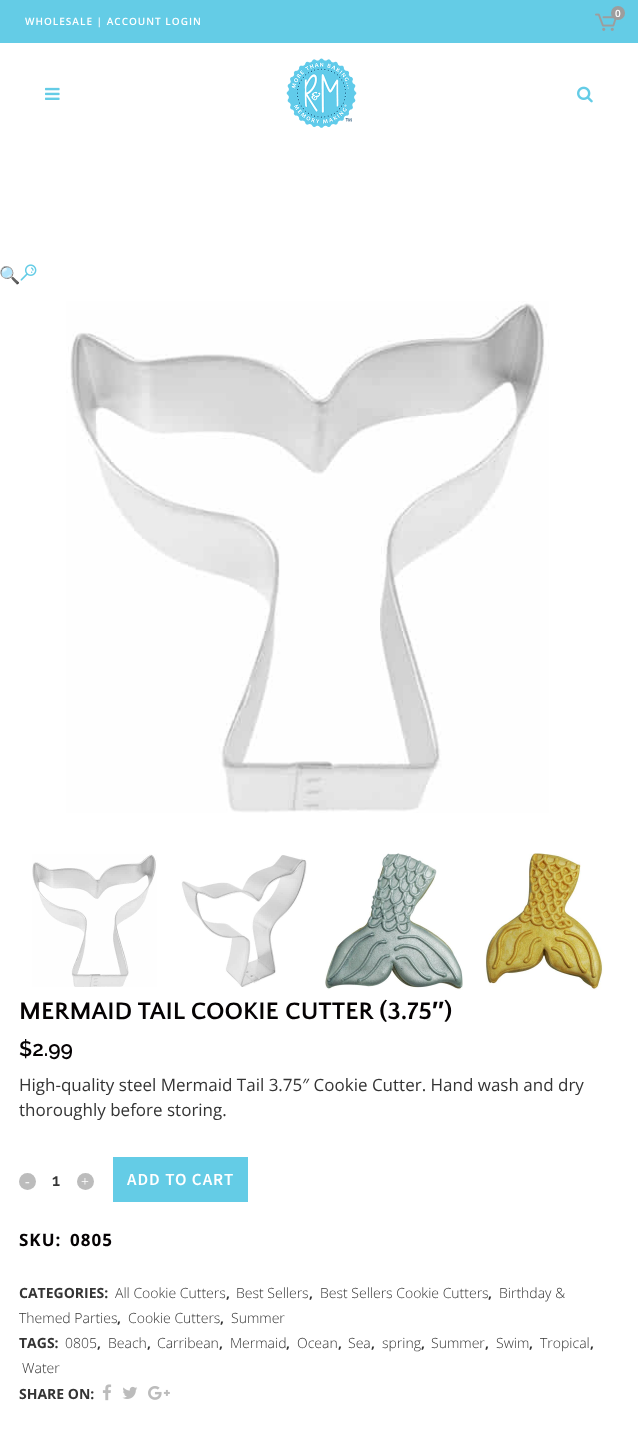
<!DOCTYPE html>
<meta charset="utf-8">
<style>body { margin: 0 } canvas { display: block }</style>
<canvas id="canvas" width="638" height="1455"></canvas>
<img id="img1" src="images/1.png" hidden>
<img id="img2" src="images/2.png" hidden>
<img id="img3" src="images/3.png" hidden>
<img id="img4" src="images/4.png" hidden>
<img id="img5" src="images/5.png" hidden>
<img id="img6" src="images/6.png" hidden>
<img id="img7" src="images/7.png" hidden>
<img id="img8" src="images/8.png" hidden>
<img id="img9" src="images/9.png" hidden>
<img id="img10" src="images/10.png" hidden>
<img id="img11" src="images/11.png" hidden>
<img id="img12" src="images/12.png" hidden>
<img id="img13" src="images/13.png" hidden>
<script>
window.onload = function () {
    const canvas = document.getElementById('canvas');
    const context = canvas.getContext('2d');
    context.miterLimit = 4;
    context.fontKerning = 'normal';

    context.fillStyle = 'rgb(255, 255, 255)';
    context.fillRect(0, 0, 638, 1455);
    context.fillStyle = 'rgb(100, 204, 230)';
    context.fillRect(0, 0, 638, 43);
    context.drawImage(document.getElementById('img1'), 595, 13, 22, 18);
    context.fillStyle = 'rgb(157, 157, 157)';
    context.beginPath();
    context.arc(618, 13, 7, 0, 2 * Math.PI);
    context.fill();
    context.drawImage(document.getElementById('img2'), 45, 87, 15, 13);
    context.drawImage(document.getElementById('img3'), 286, 58, 71, 70);
    context.drawImage(document.getElementById('img4'), 577, 86, 16, 17);
    context.drawImage(document.getElementById('img5'), 20, 264, 17, 17);
    context.drawImage(document.getElementById('img6'), 66, 301, 483, 512);
    context.drawImage(document.getElementById('img7'), 32, 854, 125, 133);
    context.drawImage(document.getElementById('img8'), 181, 855, 126, 132);
    context.drawImage(document.getElementById('img9'), 325, 853, 138, 137);
    context.drawImage(document.getElementById('img10'), 485, 853, 119, 137);
    context.fillStyle = 'rgb(188, 188, 188)';
    context.beginPath();
    context.arc(27.5, 1181.5, 8.5, 0, 2 * Math.PI);
    context.fill();
    context.beginPath();
    context.arc(85.5, 1181.5, 8.5, 0, 2 * Math.PI);
    context.fill();
    context.fillStyle = 'rgb(100, 204, 230)';
    context.fillRect(113, 1157, 135, 45);
    context.drawImage(document.getElementById('img11'), 102, 1384, 10, 17);
    context.drawImage(document.getElementById('img12'), 122, 1386, 16, 13);
    context.drawImage(document.getElementById('img13'), 148, 1386, 22, 14);
    context.letterSpacing = '1px';
    context.font = '600 10px Open Sans';
    context.fillStyle = 'rgb(255, 255, 255)';
    context.fillText('0', 615, 17);
    context.fillText('WHOLESALE | ACCOUNT LOGIN', 25, 25);
    context.letterSpacing = '0px';
    context.font = '17px Noto Color Emoji';
    context.fillStyle = 'rgb(100, 204, 230)';
    context.fillText('🔍', -1, 281);
    context.font = 'bold 25px Quattrocento Sans';
    context.fillStyle = 'rgb(5, 2, 3)';
    context.fillText('MERMAID TAIL COOKIE CUTTER (3.75', 19, 1019);
    context.font = 'bold 25px Liberation Sans';
    context.fillText('″', 432, 1019);
    context.font = 'bold 25px Quattrocento Sans';
    context.fillText(')', 444, 1019);
    context.font = '600 21px Raleway';
    context.fillText('$2.99', 19, 1056);
    context.font = '17px Open Sans';
    context.fillStyle = 'rgb(52, 52, 52)';
    context.fillText('High-quality steel Mermaid Tail 3.75″ Cookie Cutter. Hand wash and dry', 19, 1091);
    context.fillText('thoroughly before storing.', 19, 1116);
    context.font = '14px Liberation Serif';
    context.fillStyle = 'rgb(255, 255, 255)';
    context.fillText('-', 25, 1186);
    context.font = '600 17px Raleway';
    context.fillStyle = 'rgb(52, 52, 52)';
    context.fillText('1', 52, 1186);
    context.font = '14px Liberation Serif';
    context.fillStyle = 'rgb(255, 255, 255)';
    context.fillText('+', 81, 1186);
    context.letterSpacing = '1px';
    context.font = '600 17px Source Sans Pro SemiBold';
    context.fillText('ADD TO CART', 127, 1185);
    context.font = 'bold 17px Open Sans';
    context.fillStyle = 'rgb(5, 2, 3)';
    context.fillText('SKU:', 19, 1246);
    context.fillText('0805', 70, 1246);
    context.letterSpacing = '0px';
    context.font = 'bold 14px Open Sans';
    context.fillStyle = 'rgb(52, 52, 52)';
    context.fillText('CATEGORIES:', 19, 1298);
    context.font = '300 14px Open Sans';
    context.fillText('All Cookie Cutters', 115, 1298);
    context.font = 'bold 14px Open Sans';
    context.fillText(',', 226, 1298);
    context.font = '300 14px Open Sans';
    context.fillText('Best Sellers', 236, 1298);
    context.font = 'bold 14px Open Sans';
    context.fillText(',', 309, 1298);
    context.font = '300 14px Open Sans';
    context.fillText('Best Sellers Cookie Cutters', 320, 1298);
    context.font = 'bold 14px Open Sans';
    context.fillText(',', 488, 1298);
    context.font = '300 14px Open Sans';
    context.fillText('Birthday &', 499, 1298);
    context.fillText('Themed Parties', 19, 1323);
    context.font = 'bold 14px Open Sans';
    context.fillText(',', 117, 1323);
    context.font = '300 14px Open Sans';
    context.fillText('Cookie Cutters', 128, 1323);
    context.font = 'bold 14px Open Sans';
    context.fillText(',', 220, 1323);
    context.font = '300 14px Open Sans';
    context.fillText('Summer', 231, 1323);
    context.font = 'bold 14px Open Sans';
    context.fillText('TAGS:', 19, 1348);
    context.font = '300 14px Open Sans';
    context.fillText('0805', 65, 1348);
    context.font = 'bold 14px Open Sans';
    context.fillText(',', 97, 1348);
    context.font = '300 14px Open Sans';
    context.fillText('Beach', 108, 1348);
    context.font = 'bold 14px Open Sans';
    context.fillText(',', 147, 1348);
    context.font = '300 14px Open Sans';
    context.fillText('Carribean', 157, 1348);
    context.font = 'bold 14px Open Sans';
    context.fillText(',', 219, 1348);
    context.font = '300 14px Open Sans';
    context.fillText('Mermaid', 230, 1348);
    context.font = 'bold 14px Open Sans';
    context.fillText(',', 286, 1348);
    context.font = '300 14px Open Sans';
    context.fillText('Ocean', 297, 1348);
    context.font = 'bold 14px Open Sans';
    context.fillText(',', 338, 1348);
    context.font = '300 14px Open Sans';
    context.fillText('Sea', 348, 1348);
    context.font = 'bold 14px Open Sans';
    context.fillText(',', 371, 1348);
    context.font = '300 14px Open Sans';
    context.fillText('spring', 382, 1348);
    context.font = 'bold 14px Open Sans';
    context.fillText(',', 421, 1348);
    context.font = '300 14px Open Sans';
    context.fillText('Summer', 431, 1348);
    context.font = 'bold 14px Open Sans';
    context.fillText(',', 485, 1348);
    context.font = '300 14px Open Sans';
    context.fillText('Swim', 496, 1348);
    context.font = 'bold 14px Open Sans';
    context.fillText(',', 529, 1348);
    context.font = '300 14px Open Sans';
    context.fillText('Tropical', 540, 1348);
    context.font = 'bold 14px Open Sans';
    context.fillText(',', 590, 1348);
    context.font = '300 14px Open Sans';
    context.fillText('Water', 22, 1373);
    context.font = 'bold 14px Open Sans';
    context.fillText('SHARE ON:', 19, 1399);
};
</script>
